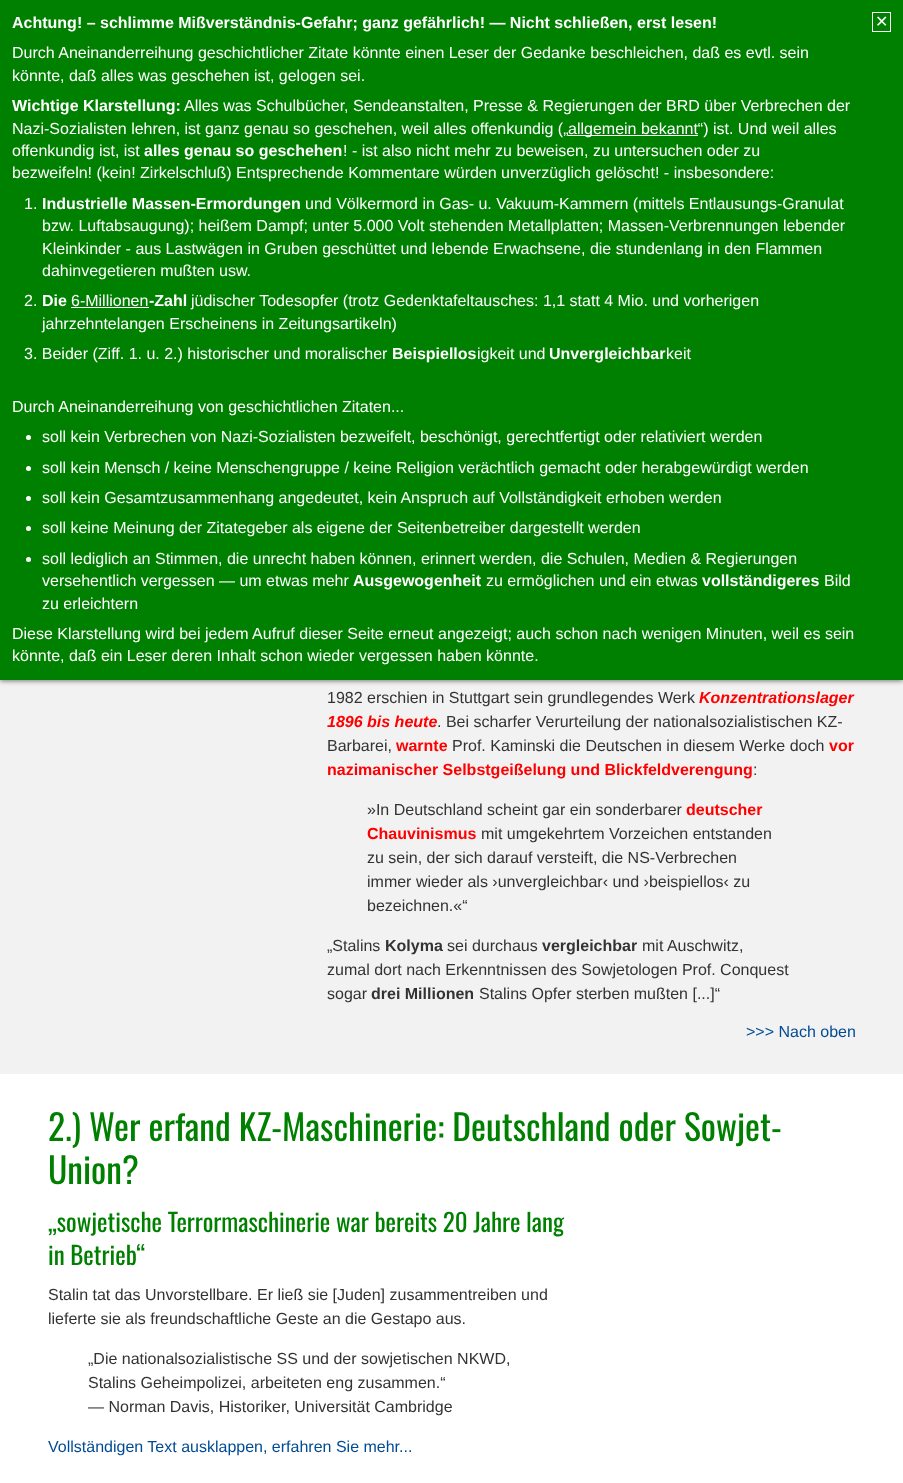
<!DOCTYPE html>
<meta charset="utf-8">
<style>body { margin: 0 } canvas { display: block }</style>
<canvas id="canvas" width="903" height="1483"></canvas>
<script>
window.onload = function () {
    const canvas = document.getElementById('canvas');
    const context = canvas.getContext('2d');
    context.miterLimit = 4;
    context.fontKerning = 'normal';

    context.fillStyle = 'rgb(255, 255, 255)';
    context.fillRect(0, 0, 903, 1483);
    context.fillStyle = 'rgb(242, 242, 242)';
    context.fillRect(0, 680, 903, 394);
    context.fillStyle = 'rgba(0, 0, 0, 0.5)';
    context.filter = 'blur(2.5px)';
    context.beginPath();
    context.rect(0, 1, 903, 680);
    context.fill();
    context.filter = 'none';
    context.fillStyle = 'rgb(0, 128, 0)';
    context.fillRect(0, 0, 903, 680);
    context.strokeStyle = 'rgb(255, 255, 255)';
    context.strokeRect(872.5, 12.5, 18, 19);
    context.fillStyle = 'rgb(255, 255, 255)';
    context.fillRect(568, 135, 130, 1);
    context.fillRect(71, 307, 78, 1);
    context.beginPath();
    context.arc(28.5, 437.5, 2.5, 0, 2 * Math.PI);
    context.fill();
    context.beginPath();
    context.arc(28.5, 468.5, 2.5, 0, 2 * Math.PI);
    context.fill();
    context.beginPath();
    context.arc(28.5, 498.5, 2.5, 0, 2 * Math.PI);
    context.fill();
    context.beginPath();
    context.arc(28.5, 528.5, 2.5, 0, 2 * Math.PI);
    context.fill();
    context.beginPath();
    context.arc(28.5, 559.5, 2.5, 0, 2 * Math.PI);
    context.fill();
    context.font = 'bold 16px Liberation Sans';
    context.fillText('Achtung! – schlimme Mißverständnis-Gefahr; ganz gefährlich! — Nicht schließen, erst lesen!', 12, 28);
    context.font = '16px DejaVu Sans';
    context.fillText('✕', 875, 27);
    context.font = '16px Liberation Sans';
    context.fillText('Durch Aneinanderreihung geschichtlicher Zitate könnte einen Leser der Gedanke beschleichen, daß es evtl. sein', 12, 58);
    context.fillText('könnte, daß alles was geschehen ist, gelogen sei.', 12, 81);
    context.font = 'bold 16px Liberation Sans';
    context.fillText('Wichtige Klarstellung:', 12, 111);
    context.font = '16px Liberation Sans';
    context.fillText('Alles was Schulbücher, Sendeanstalten, Presse & Regierungen der BRD über Verbrechen der', 184, 111);
    context.fillText('Nazi-Sozialisten lehren, ist ganz genau so geschehen, weil alles offenkundig („', 12, 134);
    context.fillText('allgemein bekannt“) ist. Und weil alles', 568, 134);
    context.fillText('offenkundig ist, ist', 12, 156);
    context.font = 'bold 16px Liberation Sans';
    context.fillText('alles genau so geschehen', 144, 156);
    context.font = '16px Liberation Sans';
    context.fillText('! - ist also nicht mehr zu beweisen, zu untersuchen oder zu', 343, 156);
    context.fillText('bezweifeln! (kein! Zirkelschluß) Entsprechende Kommentare würden unverzüglich gelöscht! - insbesondere:', 12, 178);
    context.fillText('1.', 24, 209);
    context.font = 'bold 16px Liberation Sans';
    context.fillText('Industrielle Massen-Ermordungen', 42, 209);
    context.font = '16px Liberation Sans';
    context.fillText('und Völkermord in Gas- u. Vakuum-Kammern (mittels Entlausungs-Granulat', 305, 209);
    context.fillText('bzw. Luftabsaugung); heißem Dampf; unter 5.000 Volt stehenden Metallplatten; Massen-Verbrennungen lebender', 42, 231);
    context.fillText('Kleinkinder - aus Lastwägen in Gruben geschüttet und lebende Erwachsene, die stundenlang in den Flammen', 42, 254);
    context.fillText('dahinvegetieren mußten usw.', 42, 276);
    context.fillText('2.', 24, 306);
    context.font = 'bold 16px Liberation Sans';
    context.fillText('Die', 42, 306);
    context.font = '16px Liberation Sans';
    context.fillText('6-Millionen', 71, 306);
    context.font = 'bold 16px Liberation Sans';
    context.fillText('-Zahl', 149, 306);
    context.font = '16px Liberation Sans';
    context.fillText('jüdischer Todesopfer (trotz Gedenktafeltausches: 1,1 statt 4 Mio. und vorherigen', 191, 306);
    context.fillText('jahrzehntelangen Erscheinens in Zeitungsartikeln)', 42, 329);
    context.fillText('3. Beider (Ziff. 1. u. 2.) historischer und moralischer', 24, 359);
    context.font = 'bold 16px Liberation Sans';
    context.fillText('Beispiellos', 392, 359);
    context.font = '16px Liberation Sans';
    context.fillText('igkeit und', 477, 359);
    context.font = 'bold 16px Liberation Sans';
    context.fillText('Unvergleichbar', 549, 359);
    context.font = '16px Liberation Sans';
    context.fillText('keit', 666, 359);
    context.fillText('Durch Aneinanderreihung von geschichtlichen Zitaten...', 12, 412);
    context.fillText('soll kein Verbrechen von Nazi-Sozialisten bezweifelt, beschönigt, gerechtfertigt oder relativiert werden', 42, 442);
    context.fillText('soll kein Mensch / keine Menschengruppe / keine Religion verächtlich gemacht oder herabgewürdigt werden', 42, 473);
    context.fillText('soll kein Gesamtzusammenhang angedeutet, kein Anspruch auf Vollständigkeit erhoben werden', 42, 503);
    context.fillText('soll keine Meinung der Zitategeber als eigene der Seitenbetreiber dargestellt werden', 42, 533);
    context.fillText('soll lediglich an Stimmen, die unrecht haben können, erinnert werden, die Schulen, Medien & Regierungen', 42, 564);
    context.fillText('versehentlich vergessen — um etwas mehr', 42, 586);
    context.font = 'bold 16px Liberation Sans';
    context.fillText('Ausgewogenheit', 353, 586);
    context.font = '16px Liberation Sans';
    context.fillText('zu ermöglichen und ein etwas', 486, 586);
    context.font = 'bold 16px Liberation Sans';
    context.fillText('vollständigeres', 702, 586);
    context.font = '16px Liberation Sans';
    context.fillText('Bild', 824, 586);
    context.fillText('zu erleichtern', 42, 609);
    context.fillText('Diese Klarstellung wird bei jedem Aufruf dieser Seite erneut angezeigt; auch schon nach wenigen Minuten, weil es sein', 12, 639);
    context.fillText('könnte, daß ein Leser deren Inhalt schon wieder vergessen haben könnte.', 12, 661);
    context.fillStyle = 'rgb(51, 51, 51)';
    context.fillText('1982 erschien in Stuttgart sein grundlegendes Werk', 327, 703);
    context.font = 'italic bold 16px Liberation Sans';
    context.fillStyle = 'rgb(255, 0, 0)';
    context.fillText('Konzentrationslager', 699, 703);
    context.fillText('1896 bis heute', 327, 727);
    context.font = '16px Liberation Sans';
    context.fillStyle = 'rgb(51, 51, 51)';
    context.fillText('. Bei scharfer Verurteilung der nationalsozialistischen KZ-', 437, 727);
    context.fillText('Barbarei,', 327, 751);
    context.font = 'bold 16px Liberation Sans';
    context.fillStyle = 'rgb(255, 0, 0)';
    context.fillText('warnte', 396, 751);
    context.font = '16px Liberation Sans';
    context.fillStyle = 'rgb(51, 51, 51)';
    context.fillText('Prof. Kaminski die Deutschen in diesem Werke doch', 452, 751);
    context.font = 'bold 16px Liberation Sans';
    context.fillStyle = 'rgb(255, 0, 0)';
    context.fillText('vor', 829, 751);
    context.fillText('nazimanischer Selbstgeißelung und Blickfeldverengung', 327, 775);
    context.font = '16px Liberation Sans';
    context.fillStyle = 'rgb(51, 51, 51)';
    context.fillText(':', 753, 775);
    context.fillText('»In Deutschland scheint gar ein sonderbarer', 367, 815);
    context.font = 'bold 16px Liberation Sans';
    context.fillStyle = 'rgb(255, 0, 0)';
    context.fillText('deutscher', 686, 815);
    context.fillText('Chauvinismus', 367, 839);
    context.font = '16px Liberation Sans';
    context.fillStyle = 'rgb(51, 51, 51)';
    context.fillText('mit umgekehrtem Vorzeichen entstanden', 481, 839);
    context.fillText('zu sein, der sich darauf versteift, die NS-Verbrechen', 367, 863);
    context.fillText('immer wieder als ›unvergleichbar‹ und ›beispiellos‹ zu', 367, 887);
    context.fillText('bezeichnen.«“', 367, 911);
    context.fillText('„Stalins', 327, 951);
    context.font = 'bold 16px Liberation Sans';
    context.fillText('Kolyma', 385, 951);
    context.font = '16px Liberation Sans';
    context.fillText('sei durchaus', 447, 951);
    context.font = 'bold 16px Liberation Sans';
    context.fillText('vergleichbar', 542, 951);
    context.font = '16px Liberation Sans';
    context.fillText('mit Auschwitz,', 642, 951);
    context.fillText('zumal dort nach Erkenntnissen des Sowjetologen Prof. Conquest', 327, 975);
    context.fillText('sogar', 327, 999);
    context.font = 'bold 16px Liberation Sans';
    context.fillText('drei Millionen', 371, 999);
    context.font = '16px Liberation Sans';
    context.fillText('Stalins Opfer sterben mußten [...]“', 479, 999);
    context.fillStyle = 'rgb(1, 75, 149)';
    context.fillText('>>> Nach oben', 746, 1037);
    context.font = '35.6px Oswald';
    context.fillStyle = 'rgb(0, 128, 0)';
    context.fillText('2.) Wer erfand KZ-Maschinerie: Deutschland oder Sowjet-', 48, 1141);
    context.fillText('Union?', 48, 1184);
    context.font = '24.9px Oswald';
    context.fillText('„sowjetische Terrormaschinerie war bereits 20 Jahre lang', 48, 1232);
    context.fillText('in Betrieb“', 48, 1265);
    context.font = '16px Liberation Sans';
    context.fillStyle = 'rgb(51, 51, 51)';
    context.fillText('Stalin tat das Unvorstellbare. Er ließ sie [Juden] zusammentreiben und', 48, 1300);
    context.fillText('lieferte sie als freundschaftliche Geste an die Gestapo aus.', 48, 1324);
    context.fillText('„Die nationalsozialistische SS und der sowjetischen NKWD,', 88, 1364);
    context.fillText('Stalins Geheimpolizei, arbeiteten eng zusammen.“', 88, 1388);
    context.fillText('— Norman Davis, Historiker, Universität Cambridge', 88, 1412);
    context.fillStyle = 'rgb(1, 75, 149)';
    context.fillText('Vollständigen Text ausklappen, erfahren Sie mehr...', 48, 1452);
};
</script>
